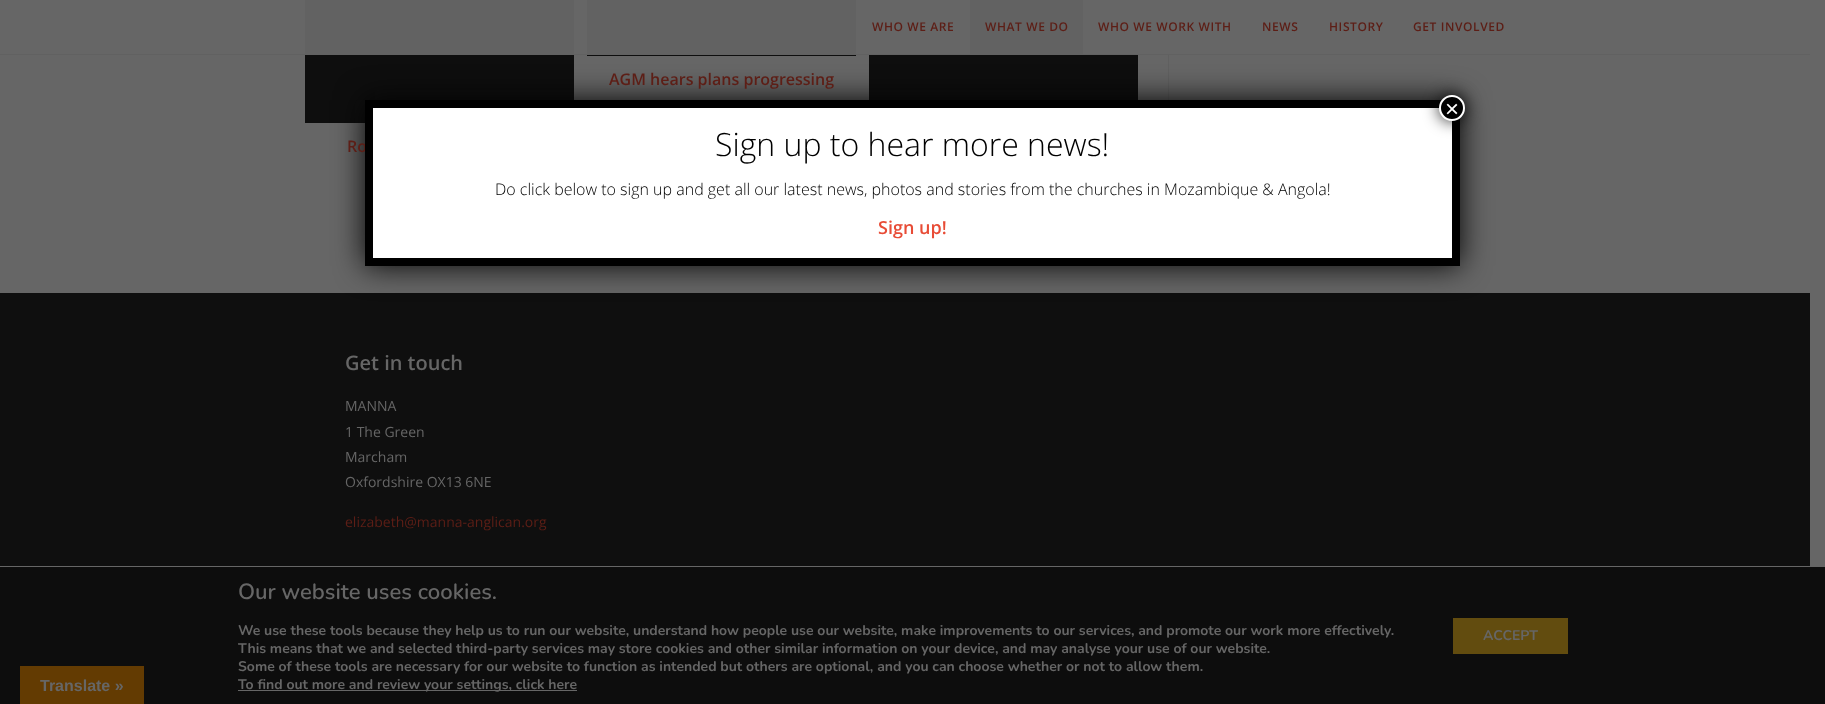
<!DOCTYPE html>
<meta charset="utf-8">
<style>body { margin: 0 } canvas { display: block }</style>
<canvas id="canvas" width="1825" height="704"></canvas>
<script>
window.onload = function () {
    const canvas = document.getElementById('canvas');
    const context = canvas.getContext('2d');
    context.miterLimit = 4;
    context.fontKerning = 'normal';

    context.fillStyle = 'rgb(102, 102, 102)';
    context.fillRect(0, 0, 1825, 704);
    context.fillStyle = 'rgb(97, 97, 97)';
    context.fillRect(0, 54, 1810, 1);
    context.fillStyle = 'rgb(96, 96, 96)';
    context.fillRect(1168, 55, 1, 45);
    context.fillStyle = 'rgb(14, 14, 14)';
    context.fillRect(587, 55, 269, 1);
    context.fillStyle = 'rgb(98, 98, 98)';
    context.fillRect(587, 0, 269, 54);
    context.fillStyle = 'rgb(14, 14, 14)';
    context.fillRect(869, 55, 269, 45);
    context.fillStyle = 'rgb(98, 98, 98)';
    context.fillRect(970, 0, 113, 54);
    context.fillStyle = 'rgb(14, 14, 14)';
    context.fillRect(305, 55, 269, 68);
    context.fillStyle = 'rgb(98, 98, 98)';
    context.fillRect(305, 0, 269, 54);
    context.fillStyle = 'rgb(15, 15, 15)';
    context.fillRect(0, 293, 1810, 273);
    context.fillStyle = 'rgb(2, 2, 2)';
    context.filter = 'blur(15px)';
    context.beginPath();
    context.roundRect(365, 100, 1095, 166, 3);
    context.fill();
    context.filter = 'none';
    context.fillStyle = 'rgb(255, 255, 255)';
    context.fillRect(373, 108, 1079, 150);
    context.fillStyle = 'rgb(13, 13, 13)';
    context.fillRect(0, 567, 1825, 137);
    context.fillStyle = 'rgb(99, 59, 2)';
    context.fillRect(20, 666, 124, 38);
    context.fillStyle = 'rgb(102, 102, 102)';
    context.fillRect(238, 690, 339, 1);
    context.fillStyle = 'rgb(98, 76, 15)';
    context.fillRect(1453, 618, 115, 36);
    context.letterSpacing = '0.6px';
    context.font = '600 12px Open Sans';
    context.fillStyle = 'rgb(93, 30, 22)';
    context.fillText('WHO WE ARE', 872, 31);
    context.fillText('WHAT WE DO', 985, 31);
    context.fillText('WHO WE WORK WITH', 1098, 31);
    context.fillText('NEWS', 1262, 31);
    context.fillText('HISTORY', 1329, 31);
    context.fillText('GET INVOLVED', 1413, 31);
    context.letterSpacing = '0px';
    context.font = '600 16px Open Sans';
    context.fillText('AGM hears plans progressing', 609, 85);
    context.fillText('Ro', 347, 152);
    context.font = '600 20px Open Sans';
    context.fillStyle = 'rgb(102, 102, 102)';
    context.fillText('Get in touch', 345, 370);
    context.font = '14px Open Sans';
    context.fillText('MANNA', 345, 411);
    context.fillText('1 The Green', 345, 437);
    context.fillText('Marcham', 345, 462);
    context.fillText('Oxfordshire OX13 6NE', 345, 487);
    context.fillStyle = 'rgb(93, 30, 22)';
    context.fillText('elizabeth@manna-anglican.org', 345, 527);
    context.beginPath();
    context.moveTo(369, 104);
    context.lineTo(1456, 104);
    context.lineTo(1456, 262);
    context.lineTo(369, 262);
    context.closePath();
    context.strokeStyle = 'rgb(0, 0, 0)';
    context.lineWidth = 8;
    context.stroke();
    context.fillStyle = 'rgba(2, 2, 2, 0.75)';
    context.filter = 'blur(7.5px)';
    context.beginPath();
    context.roundRect(1438, 94, 28, 28, 14);
    context.fill();
    context.filter = 'none';
    context.fillStyle = 'rgb(0, 0, 0)';
    context.beginPath();
    context.arc(1452, 108, 12, 0, 2 * Math.PI);
    context.fill();
    context.strokeStyle = 'rgb(255, 255, 255)';
    context.lineWidth = 2;
    context.stroke();
    context.font = '24px Liberation Sans';
    context.fillStyle = 'rgb(255, 255, 255)';
    context.fillText('×', 1445, 117);
    context.font = '300 32px Open Sans';
    context.fillStyle = 'rgb(0, 0, 0)';
    context.fillText('Sign up to hear more news!', 715, 156);
    context.font = '300 16px Open Sans';
    context.fillText('Do click below to sign up and get all our latest news, photos and stories from the churches in Mozambique & Angola!', 495, 195);
    context.font = '600 18px Open Sans';
    context.fillStyle = 'rgb(232, 76, 54)';
    context.fillText('Sign up!', 878, 234);
    context.font = 'bold 16px Liberation Sans';
    context.fillStyle = 'rgb(102, 102, 102)';
    context.fillText('Translate »', 40, 691);
    context.font = '600 22px Nunito';
    context.fillText('Our website uses cookies.', 238, 599);
    context.font = 'bold 14px Nunito';
    context.fillText('We use these tools because they help us to run our website, understand how people use our website, make improvements to our services, and promote our work more effectively.', 238, 635);
    context.fillText('This means that we and selected third-party services may store cookies and other similar information on your device, and may analyse your use of our website.', 238, 653);
    context.fillText('Some of these tools are necessary for our website to function as intended but others are optional, and you can choose whether or not to allow them.', 238, 671);
    context.fillText('To find out more and review your settings, click here', 238, 689);
    context.fillText('ACCEPT', 1483, 640);
};
</script>
